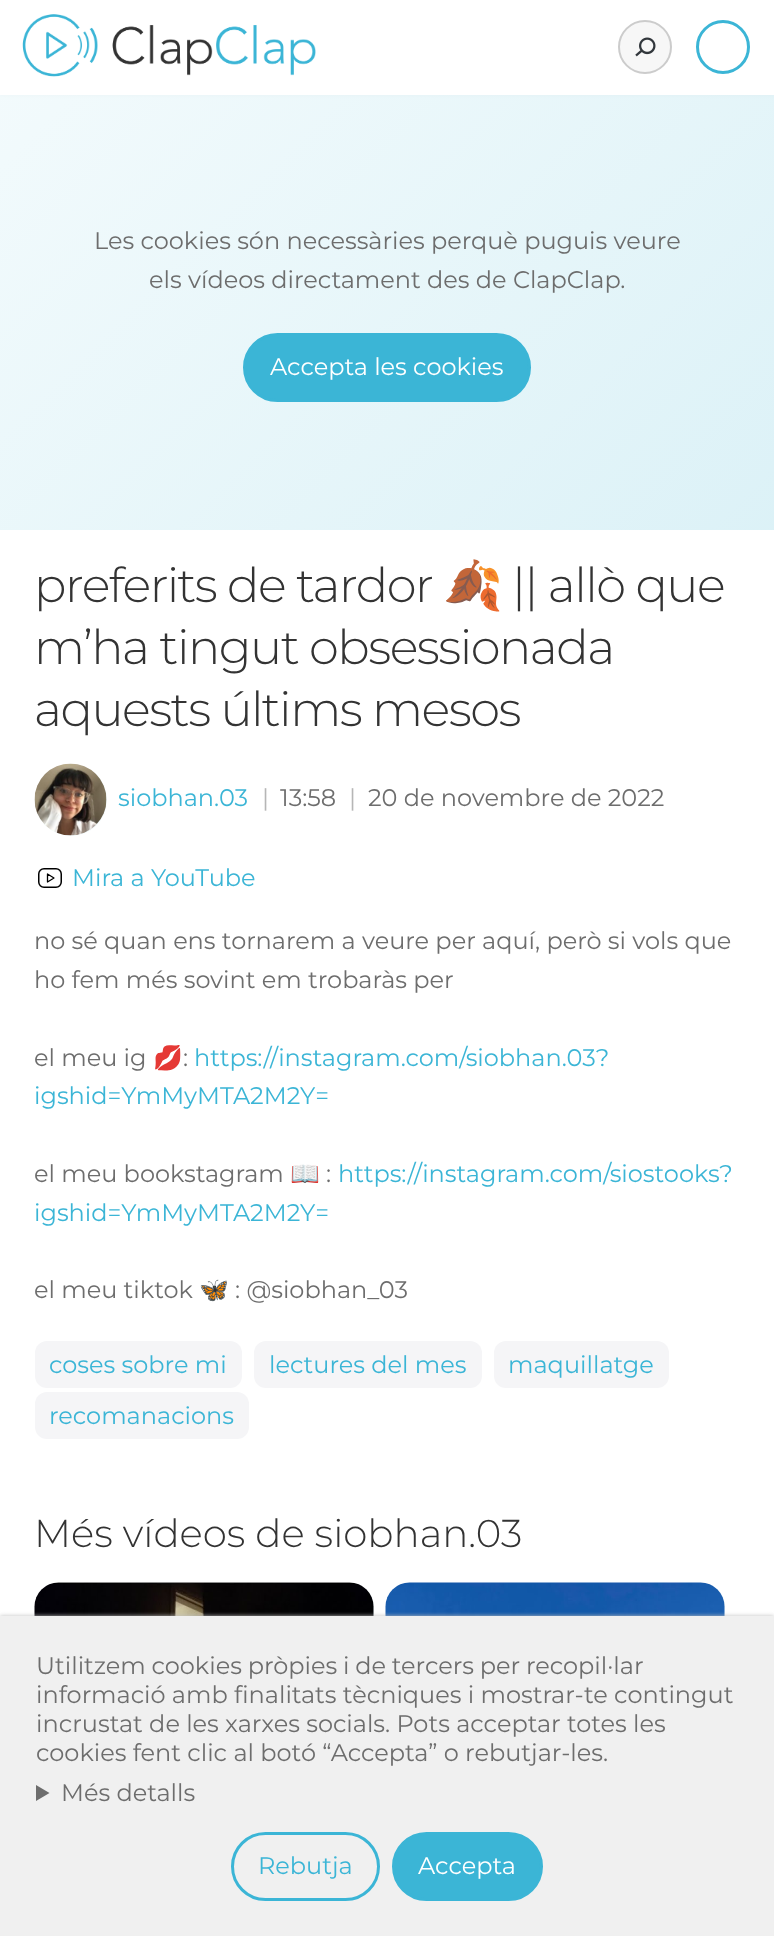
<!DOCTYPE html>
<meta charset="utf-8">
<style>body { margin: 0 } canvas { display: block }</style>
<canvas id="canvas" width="774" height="1936"></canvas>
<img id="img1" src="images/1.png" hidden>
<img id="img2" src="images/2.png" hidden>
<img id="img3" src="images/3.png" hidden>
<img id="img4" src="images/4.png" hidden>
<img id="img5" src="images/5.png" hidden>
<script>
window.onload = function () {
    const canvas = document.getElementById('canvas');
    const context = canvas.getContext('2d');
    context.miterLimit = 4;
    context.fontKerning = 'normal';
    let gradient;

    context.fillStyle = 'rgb(255, 255, 255)';
    context.fillRect(0, 0, 774, 1936);
    context.save();
    context.beginPath();
    context.moveTo(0, 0);
    context.lineTo(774, 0);
    context.lineTo(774, 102);
    context.lineTo(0, 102);
    context.closePath();
    context.moveTo(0, 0);
    context.lineTo(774, 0);
    context.lineTo(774, 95);
    context.lineTo(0, 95);
    context.closePath();
    context.clip('evenodd');
    context.fillStyle = 'rgb(192, 192, 192)';
    context.filter = 'blur(2px)';
    context.beginPath();
    context.rect(0, 0, 774, 95);
    context.fill();
    context.filter = 'none';
    context.restore();
    context.drawImage(document.getElementById('img1'), 22, 14, 294, 63);
    context.fillStyle = 'rgb(247, 247, 247)';
    context.beginPath();
    context.arc(645, 47, 26, 0, 2 * Math.PI);
    context.fill();
    context.strokeStyle = 'rgb(204, 204, 204)';
    context.lineWidth = 2;
    context.stroke();
    context.drawImage(document.getElementById('img2'), 635, 37, 21, 20);
    context.beginPath();
    context.arc(723, 47, 25.5, 0, 2 * Math.PI);
    context.strokeStyle = 'rgb(59, 181, 214)';
    context.lineWidth = 3;
    context.stroke();
    gradient = context.createLinearGradient(85, 10, 689, 614);
    gradient.addColorStop(0, 'rgba(241, 250, 252, 0.9)');
    gradient.addColorStop(1, 'rgba(216, 240, 246, 0.9)');
    context.fillStyle = gradient;
    context.fillRect(0, 95, 774, 435);
    context.fillStyle = 'rgb(59, 181, 214)';
    context.beginPath();
    context.roundRect(244.5, 334.5, 285, 66, 33);
    context.fill();
    context.stroke();
    context.fillStyle = 'rgb(242, 250, 252)';
    context.beginPath();
    context.arc(71, 800, 36, 0, 2 * Math.PI);
    context.fill();
    context.drawImage(document.getElementById('img3'), 34, 763, 73, 73);
    context.beginPath();
    context.roundRect(38.75, 868.75, 22.5, 18.5, 5.25);
    context.strokeStyle = 'rgb(0, 0, 0)';
    context.lineWidth = 1.5;
    context.stroke();
    context.beginPath();
    context.moveTo(47.5, 874);
    context.lineTo(54, 878);
    context.lineTo(47.5, 882);
    context.closePath();
    context.lineWidth = 1.3;
    context.lineCap = 'round';
    context.lineJoin = 'round';
    context.stroke();
    context.fillStyle = 'rgb(245, 245, 247)';
    context.beginPath();
    context.roundRect(35, 1341, 207, 47, 12);
    context.fill();
    context.beginPath();
    context.roundRect(254, 1341, 228, 47, 12);
    context.fill();
    context.beginPath();
    context.roundRect(494, 1341, 175, 47, 12);
    context.fill();
    context.beginPath();
    context.roundRect(35, 1392, 214, 47, 12);
    context.fill();
    context.fillStyle = 'rgb(242, 250, 252)';
    context.beginPath();
    context.roundRect(35, 1583, 339, 190, 24);
    context.fill();
    context.drawImage(document.getElementById('img4'), 34, 1582, 340, 34);
    context.beginPath();
    context.roundRect(386, 1583, 339, 190, 24);
    context.fill();
    context.drawImage(document.getElementById('img5'), 385, 1582, 340, 34);
    context.fillStyle = 'rgb(192, 192, 192)';
    context.filter = 'blur(2px)';
    context.beginPath();
    context.rect(0, 1616, 774, 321);
    context.fill();
    context.filter = 'none';
    context.fillStyle = 'rgb(240, 240, 240)';
    context.fillRect(0, 1616, 774, 320);
    context.fillStyle = 'rgb(109, 109, 109)';
    context.beginPath();
    context.moveTo(36, 1785);
    context.lineTo(49.5, 1793);
    context.lineTo(36, 1801);
    context.closePath();
    context.fill();
    context.beginPath();
    context.roundRect(232.5, 1833.5, 146, 66, 33);
    context.strokeStyle = 'rgb(59, 181, 214)';
    context.lineWidth = 3;
    context.lineJoin = 'miter';
    context.stroke();
    context.fillStyle = 'rgb(59, 181, 214)';
    context.beginPath();
    context.roundRect(393.5, 1833.5, 148, 66, 33);
    context.fill();
    context.stroke();
    context.font = '24px Montserrat';
    context.fillStyle = 'rgb(109, 109, 109)';
    context.fillText('Les cookies són necessàries perquè puguis veure', 94, 249);
    context.fillText('els vídeos directament des de ClapClap.', 149, 288);
    context.fillStyle = 'rgb(255, 255, 255)';
    context.fillText('Accepta les cookies', 270, 375);
    context.letterSpacing = '-1.5px';
    context.font = '300 48px Montserrat';
    context.fillStyle = 'rgb(51, 51, 51)';
    context.fillText('preferits de tardor', 34, 602);
    context.font = '48px Noto Color Emoji';
    context.fillText('🍂', 443, 602);
    context.font = '300 48px Montserrat';
    context.fillText('|| allò que', 512, 602);
    context.fillText('m’ha tingut obsessionada', 34, 664);
    context.fillText('aquests últims mesos', 34, 726);
    context.letterSpacing = '0px';
    context.font = '24px Montserrat';
    context.fillStyle = 'rgb(59, 181, 214)';
    context.fillText('siobhan.03', 118, 806);
    context.fillStyle = 'rgb(182, 182, 182)';
    context.fillText('|', 262, 806);
    context.fillStyle = 'rgb(109, 109, 109)';
    context.fillText('13:58', 280, 806);
    context.fillStyle = 'rgb(182, 182, 182)';
    context.fillText('|', 349, 806);
    context.fillStyle = 'rgb(109, 109, 109)';
    context.fillText('20 de novembre de 2022', 368, 806);
    context.fillStyle = 'rgb(59, 181, 214)';
    context.fillText('Mira a YouTube', 72, 886);
    context.fillStyle = 'rgb(109, 109, 109)';
    context.fillText('no sé quan ens tornarem a veure per aquí, però si vols que', 34, 949);
    context.fillText('ho fem més sovint em trobaràs per', 34, 988);
    context.fillText('el meu ig', 34, 1066);
    context.font = '24px Noto Color Emoji';
    context.fillText('💋', 153, 1066);
    context.font = '24px Montserrat';
    context.fillText(':', 183, 1066);
    context.fillStyle = 'rgb(59, 181, 214)';
    context.fillText('https://instagram.com/siobhan.03?', 194, 1066);
    context.fillText('igshid=YmMyMTA2M2Y=', 34, 1104);
    context.fillStyle = 'rgb(109, 109, 109)';
    context.fillText('el meu bookstagram', 34, 1182);
    context.font = '24px Noto Color Emoji';
    context.fillText('📖', 290, 1182);
    context.font = '24px Montserrat';
    context.fillText(':', 326, 1182);
    context.fillStyle = 'rgb(59, 181, 214)';
    context.fillText('https://instagram.com/siostooks?', 338, 1182);
    context.fillText('igshid=YmMyMTA2M2Y=', 34, 1221);
    context.fillStyle = 'rgb(109, 109, 109)';
    context.fillText('el meu tiktok', 34, 1298);
    context.font = '24px Noto Color Emoji';
    context.fillText('🦋', 199, 1298);
    context.font = '24px Montserrat';
    context.fillText(': @siobhan_03', 235, 1298);
    context.fillStyle = 'rgb(59, 181, 214)';
    context.fillText('coses sobre mi', 49, 1373);
    context.fillText('lectures del mes', 269, 1373);
    context.fillText('maquillatge', 508, 1373);
    context.fillText('recomanacions', 49, 1424);
    context.font = '300 38.8px Montserrat';
    context.fillStyle = 'rgb(51, 51, 51)';
    context.fillText('Més vídeos de siobhan.03', 34, 1547);
    context.wordSpacing = '-0.5px';
    context.font = '24px Montserrat';
    context.fillStyle = 'rgb(109, 109, 109)';
    context.fillText('Utilitzem cookies pròpies i de tercers per recopil·lar', 36, 1674);
    context.wordSpacing = '0px';
    context.fillText('informació amb finalitats tècniques i mostrar-te contingut', 36, 1703);
    context.fillText('incrustat de les xarxes socials. Pots acceptar totes les', 36, 1732);
    context.fillText('cookies fent clic al botó “Accepta” o rebutjar-les.', 36, 1761);
    context.fillText('Més detalls', 61, 1801);
    context.fillStyle = 'rgb(59, 181, 214)';
    context.fillText('Rebutja', 258, 1874);
    context.fillStyle = 'rgb(255, 255, 255)';
    context.fillText('Accepta', 418, 1874);
};
</script>
